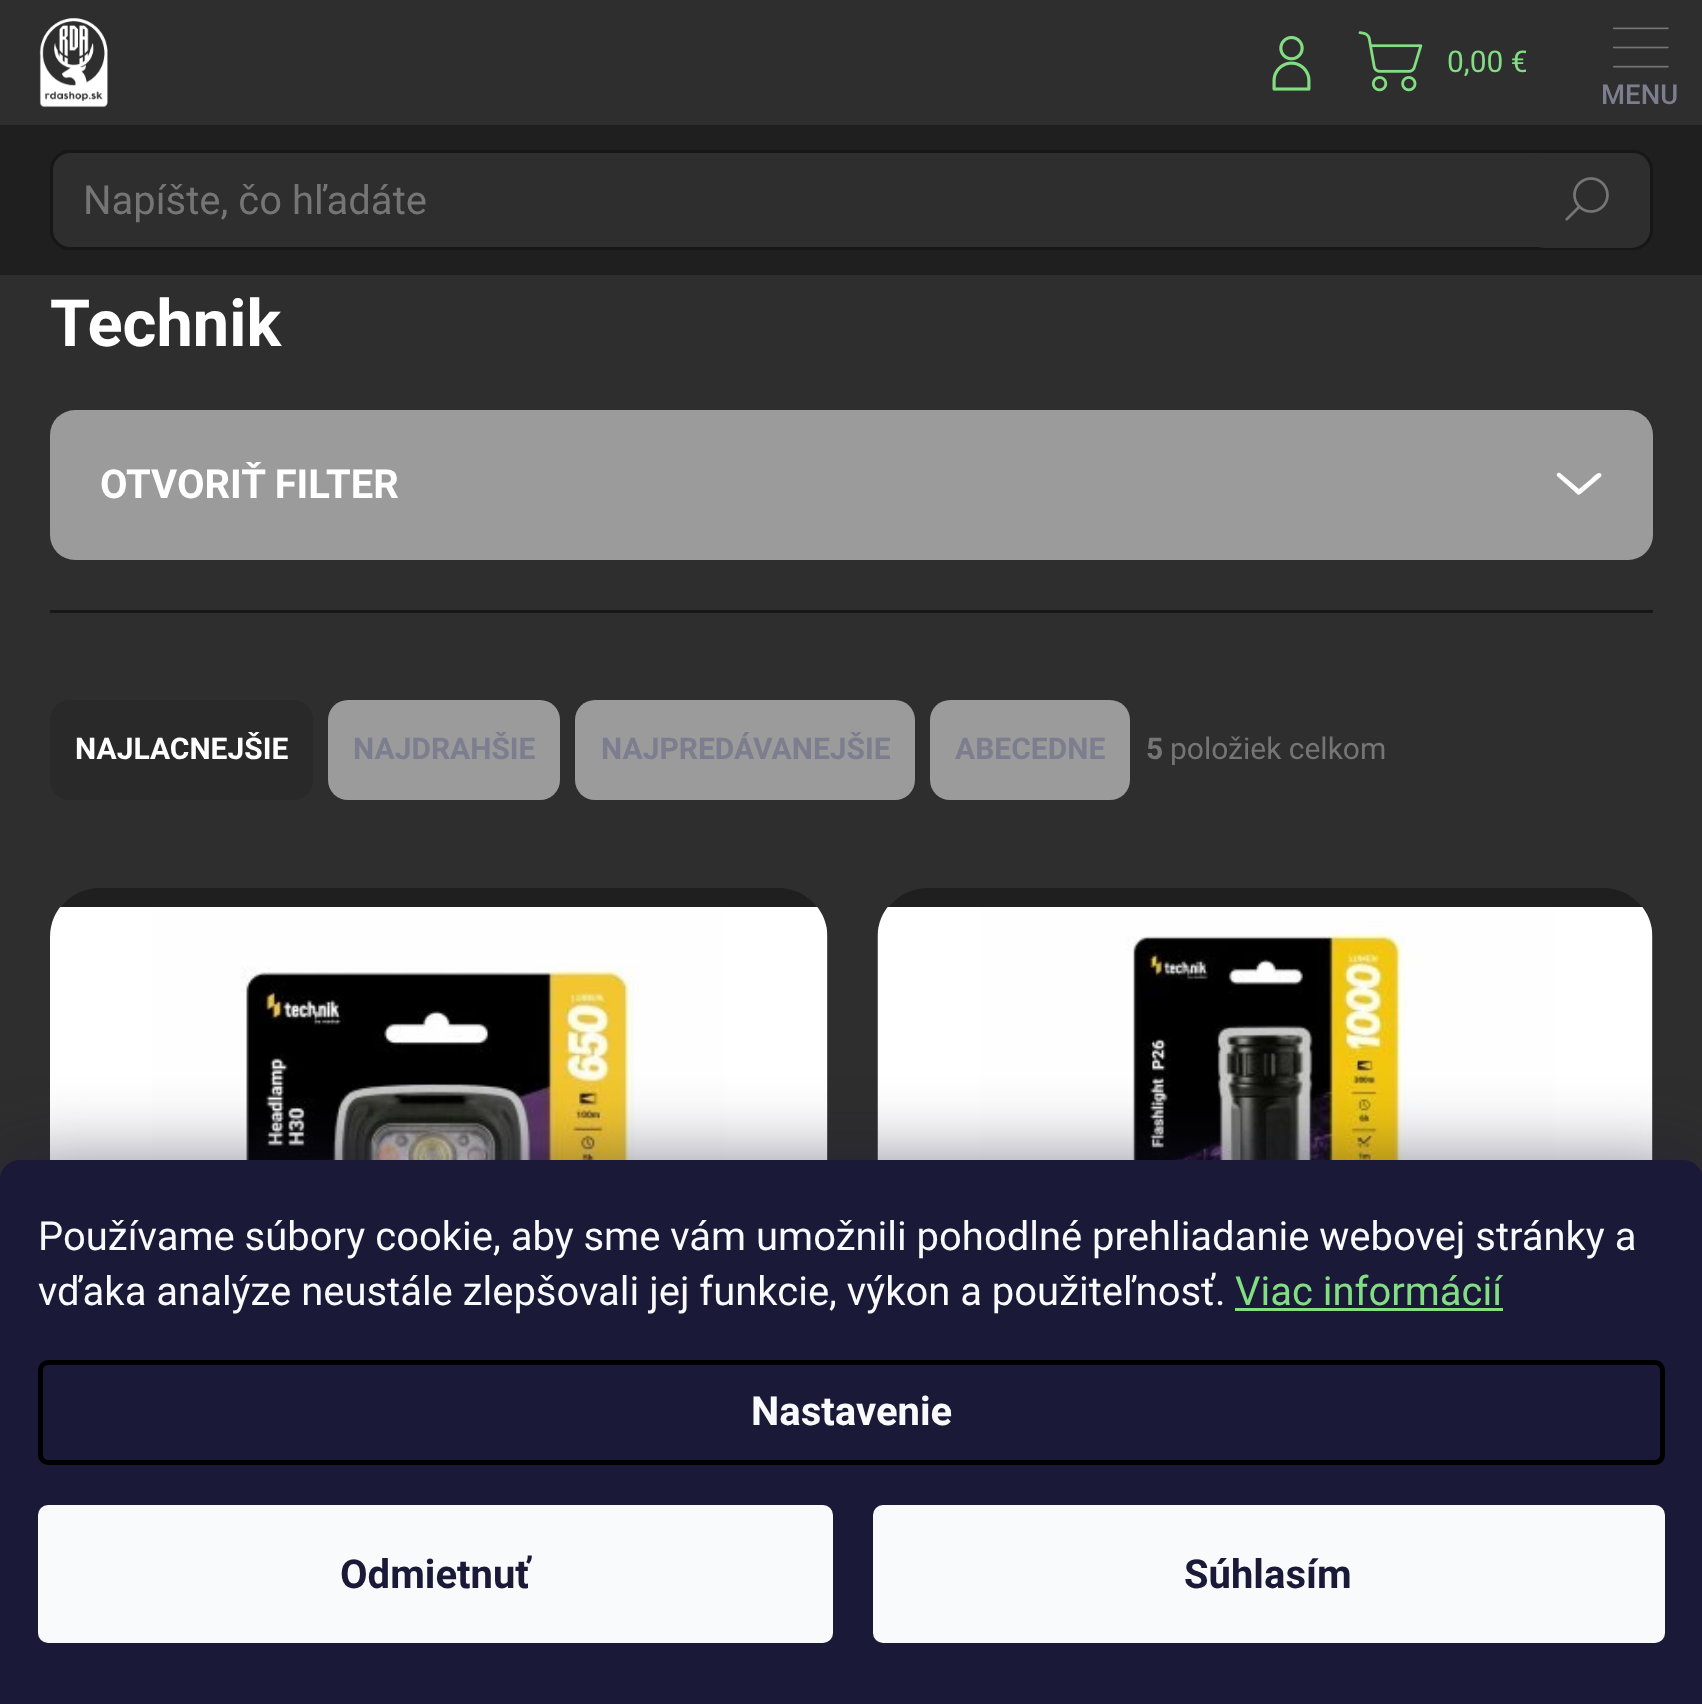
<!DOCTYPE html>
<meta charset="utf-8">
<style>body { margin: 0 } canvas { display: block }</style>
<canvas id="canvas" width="1702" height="1704"></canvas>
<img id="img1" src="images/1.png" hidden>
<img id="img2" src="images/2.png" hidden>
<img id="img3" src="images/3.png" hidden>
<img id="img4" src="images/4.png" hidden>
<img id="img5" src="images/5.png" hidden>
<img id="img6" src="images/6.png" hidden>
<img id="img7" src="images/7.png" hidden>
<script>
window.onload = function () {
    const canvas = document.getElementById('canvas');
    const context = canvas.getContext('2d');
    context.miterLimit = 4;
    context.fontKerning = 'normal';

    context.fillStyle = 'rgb(46, 46, 46)';
    context.fillRect(0, 0, 1702, 1704);
    context.drawImage(document.getElementById('img1'), 39, 18, 69, 90);
    context.drawImage(document.getElementById('img2'), 1272, 35, 39, 56);
    context.drawImage(document.getElementById('img3'), 1358, 31, 65, 61);
    context.drawImage(document.getElementById('img4'), 1613, 27, 56, 41);
    context.fillStyle = 'rgb(31, 31, 31)';
    context.fillRect(0, 125, 1702, 150);
    context.fillStyle = 'rgb(46, 46, 46)';
    context.beginPath();
    context.roundRect(51.5, 151.5, 1600, 97, 18.5);
    context.fill();
    context.strokeStyle = 'rgb(23, 23, 23)';
    context.lineWidth = 3;
    context.stroke();
    context.beginPath();
    context.roundRect(1525, 153, 125, 95, 20);
    context.fill();
    context.drawImage(document.getElementById('img5'), 1565, 177, 44, 44);
    context.fillStyle = 'rgb(155, 155, 155)';
    context.beginPath();
    context.roundRect(50, 410, 1603, 150, 25);
    context.fill();
    context.fillStyle = 'rgb(255, 255, 255)';
    context.beginPath();
    context.moveTo(1601, 474);
    context.bezierCurveTo(1599, 470, 1592, 478, 1591, 479);
    context.lineTo(1579, 489);
    context.lineTo(1560, 473);
    context.bezierCurveTo(1558, 472, 1556, 474, 1557, 476);
    context.lineTo(1574, 491);
    context.bezierCurveTo(1579, 496, 1578, 496, 1584, 491);
    context.lineTo(1597, 480);
    context.bezierCurveTo(1599, 478, 1603, 476, 1601, 474);
    context.closePath();
    context.fill();
    context.fillStyle = 'rgb(23, 23, 23)';
    context.fillRect(50, 610, 1603, 3);
    context.fillStyle = 'rgb(41, 41, 41)';
    context.beginPath();
    context.roundRect(50, 700, 263, 100, 20);
    context.fill();
    context.fillStyle = 'rgb(155, 155, 155)';
    context.beginPath();
    context.roundRect(328, 700, 232, 100, 20);
    context.fill();
    context.beginPath();
    context.roundRect(575, 700, 340, 100, 20);
    context.fill();
    context.beginPath();
    context.roundRect(930, 700, 200, 100, 20);
    context.fill();
    context.fillStyle = 'rgb(31, 31, 31)';
    context.beginPath();
    context.roundRect(50, 888, 778, 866, 50);
    context.fill();
    context.drawImage(document.getElementById('img6'), 50, 907, 778, 253);
    context.beginPath();
    context.roundRect(878, 888, 775, 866, 50);
    context.fill();
    context.drawImage(document.getElementById('img7'), 877, 907, 776, 253);
    context.fillStyle = 'rgba(27, 25, 57, 0.5)';
    context.filter = 'blur(37.5px)';
    context.beginPath();
    context.roundRect(0, 1160, 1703, 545, 20);
    context.fill();
    context.filter = 'none';
    context.fillStyle = 'rgb(26, 25, 55)';
    context.beginPath();
    context.moveTo(20, 1160);
    context.lineTo(1683, 1160);
    context.bezierCurveTo(1694, 1160, 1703, 1169, 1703, 1180);
    context.lineTo(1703, 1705);
    context.lineTo(0, 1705);
    context.lineTo(0, 1180);
    context.bezierCurveTo(0, 1169, 9, 1160, 20, 1160);
    context.closePath();
    context.fill();
    context.fillStyle = 'rgb(130, 222, 130)';
    context.fillRect(1235, 1308, 268, 3);
    context.beginPath();
    context.roundRect(40.5, 1362.5, 1622, 100, 7.5);
    context.strokeStyle = 'rgb(0, 0, 0)';
    context.lineWidth = 5;
    context.stroke();
    context.fillStyle = 'rgb(248, 250, 251)';
    context.beginPath();
    context.roundRect(38, 1505, 795, 138, 10);
    context.fill();
    context.beginPath();
    context.roundRect(873, 1505, 792, 138, 10);
    context.fill();
    context.font = '30px Roboto';
    context.fillStyle = 'rgb(130, 222, 130)';
    context.fillText('0,00 €', 1447, 72);
    context.font = '500 27.5px Roboto';
    context.fillStyle = 'rgb(124, 126, 143)';
    context.fillText('MENU', 1601, 104);
    context.font = '40px Roboto';
    context.fillStyle = 'rgb(117, 117, 117)';
    context.fillText('Napíšte, čo hľadáte', 83, 214);
    context.font = 'bold 65px Roboto';
    context.fillStyle = 'rgb(255, 255, 255)';
    context.fillText('Technik', 50, 346);
    context.font = 'bold 40px Roboto';
    context.fillText('OTVORIŤ FILTER', 100, 498);
    context.font = 'bold 30px Roboto';
    context.fillText('NAJLACNEJŠIE', 75, 759);
    context.fillStyle = 'rgb(124, 126, 143)';
    context.fillText('NAJDRAHŠIE', 353, 759);
    context.fillText('NAJPREDÁVANEJŠIE', 601, 759);
    context.fillText('ABECEDNE', 955, 759);
    context.fillStyle = 'rgb(117, 117, 117)';
    context.fillText('5', 1146, 759);
    context.font = '30px Roboto';
    context.fillText('položiek celkom', 1170, 759);
    context.font = '40px Roboto';
    context.fillStyle = 'rgb(248, 250, 251)';
    context.fillText('Používame súbory cookie, aby sme vám umožnili pohodlné prehliadanie webovej stránky a', 38, 1250);
    context.fillText('vďaka analýze neustále zlepšovali jej funkcie, výkon a použiteľnosť.', 38, 1305);
    context.fillStyle = 'rgb(130, 222, 130)';
    context.fillText('Viac informácií', 1235, 1305);
    context.font = 'bold 40px Roboto';
    context.fillStyle = 'rgb(248, 250, 251)';
    context.fillText('Nastavenie', 751, 1425);
    context.fillStyle = 'rgb(26, 25, 55)';
    context.fillText('Odmietnuť', 340, 1588);
    context.fillText('Súhlasím', 1184, 1588);
};
</script>
